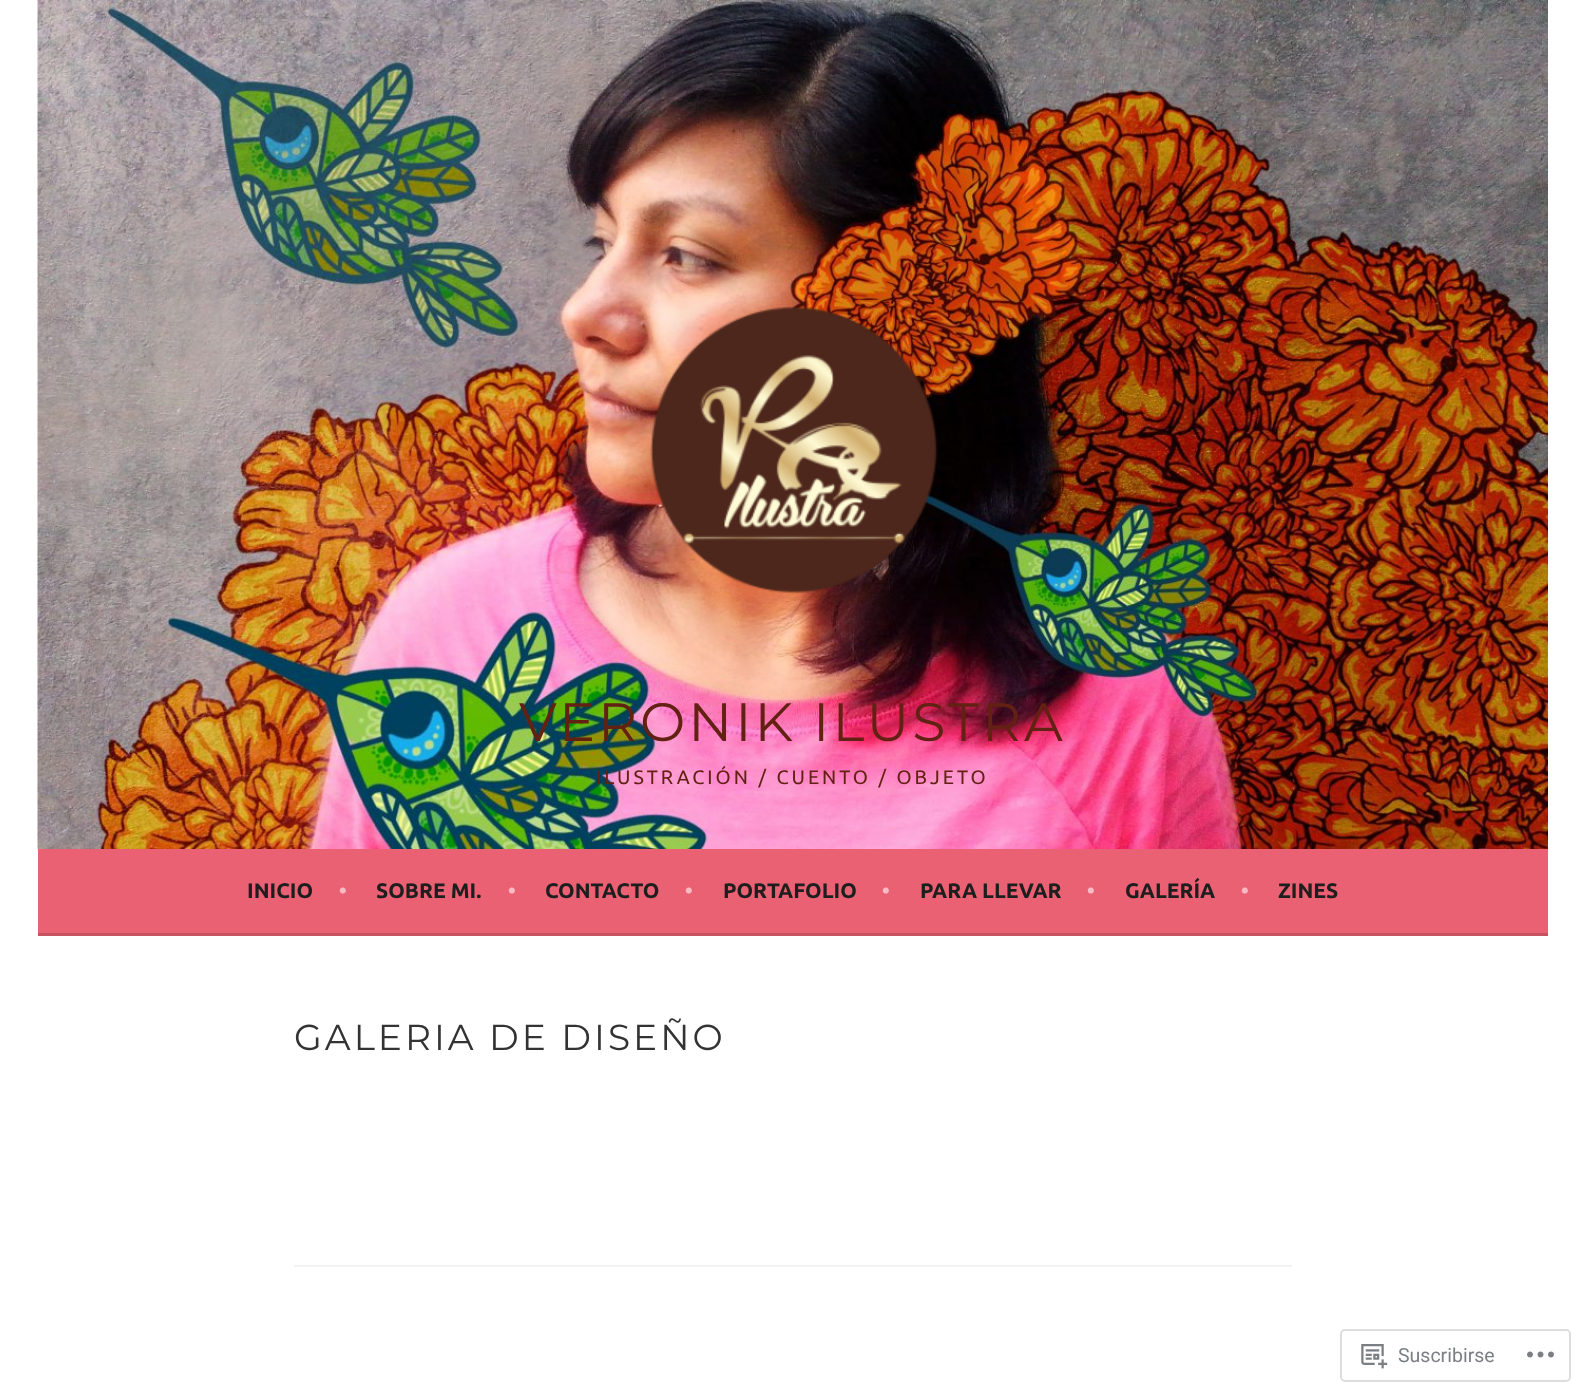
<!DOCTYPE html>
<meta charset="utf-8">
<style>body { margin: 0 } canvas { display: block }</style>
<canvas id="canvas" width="1585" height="1396"></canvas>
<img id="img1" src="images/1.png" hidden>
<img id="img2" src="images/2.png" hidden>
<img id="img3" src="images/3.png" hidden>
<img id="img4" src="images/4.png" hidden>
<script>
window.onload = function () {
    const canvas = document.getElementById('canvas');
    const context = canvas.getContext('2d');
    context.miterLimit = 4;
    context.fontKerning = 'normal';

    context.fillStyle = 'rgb(255, 255, 255)';
    context.fillRect(0, 0, 1585, 1396);
    context.drawImage(document.getElementById('img1'), 37, 0, 1511, 849);
    context.drawImage(document.getElementById('img2'), 650, 306, 288, 287);
    context.fillStyle = 'rgb(234, 97, 115)';
    context.fillRect(38, 849, 1510, 84);
    context.fillStyle = 'rgb(199, 82, 98)';
    context.fillRect(38, 933, 1510, 3);
    context.fillStyle = 'rgb(242, 242, 242)';
    context.fillRect(294, 1265, 998, 2);
    context.beginPath();
    context.roundRect(1341, 1330, 229, 51, 4);
    context.strokeStyle = 'rgb(221, 221, 223)';
    context.lineWidth = 2;
    context.stroke();
    context.drawImage(document.getElementById('img3'), 1361, 1344, 27, 25);
    context.drawImage(document.getElementById('img4'), 1527, 1351, 27, 7);
    context.letterSpacing = '3px';
    context.font = '100 54px Montserrat';
    context.fillStyle = 'rgb(98, 33, 19)';
    context.fillText('VERONIK ILUSTRA', 519, 741);
    context.font = '19.5px Ubuntu';
    context.fillText('ILUSTRACIÓN / CUENTO / OBJETO', 596, 784);
    context.letterSpacing = '0px';
    context.font = 'bold 21px Ubuntu';
    context.fillStyle = 'rgb(30, 30, 30)';
    context.fillText('INICIO', 247, 898);
    context.fillStyle = 'rgb(246, 187, 195)';
    context.fillText('•', 339, 898);
    context.fillStyle = 'rgb(30, 30, 30)';
    context.fillText('SOBRE MI.', 376, 898);
    context.fillStyle = 'rgb(246, 187, 195)';
    context.fillText('•', 508, 898);
    context.fillStyle = 'rgb(30, 30, 30)';
    context.fillText('CONTACTO', 545, 898);
    context.fillStyle = 'rgb(246, 187, 195)';
    context.fillText('•', 685, 898);
    context.fillStyle = 'rgb(30, 30, 30)';
    context.fillText('PORTAFOLIO', 723, 898);
    context.fillStyle = 'rgb(246, 187, 195)';
    context.fillText('•', 882, 898);
    context.fillStyle = 'rgb(30, 30, 30)';
    context.fillText('PARA LLEVAR', 920, 898);
    context.fillStyle = 'rgb(246, 187, 195)';
    context.fillText('•', 1087, 898);
    context.fillStyle = 'rgb(30, 30, 30)';
    context.fillText('GALERÍA', 1125, 898);
    context.fillStyle = 'rgb(246, 187, 195)';
    context.fillText('•', 1241, 898);
    context.fillStyle = 'rgb(30, 30, 30)';
    context.fillText('ZINES', 1278, 898);
    context.letterSpacing = '3px';
    context.font = '100 36px Montserrat';
    context.fillStyle = 'rgb(51, 51, 51)';
    context.fillText('GALERIA DE DISEÑO', 294, 1050);
    context.letterSpacing = '0px';
    context.font = '19.5px Roboto';
    context.fillStyle = 'rgb(123, 127, 133)';
    context.fillText('Suscribirse', 1398, 1362);
};
</script>
